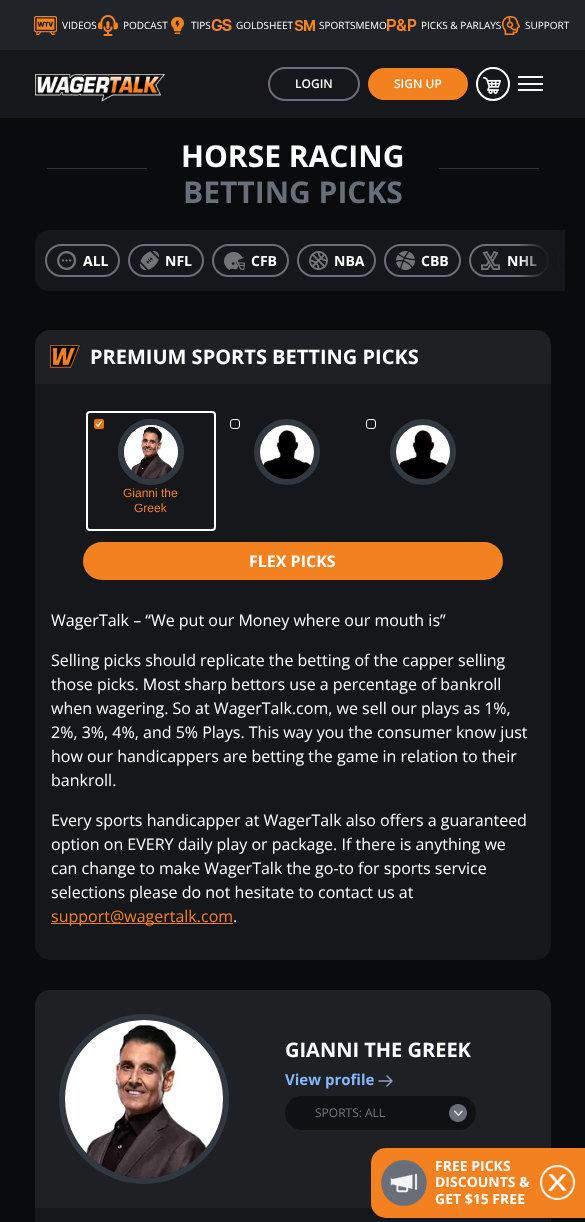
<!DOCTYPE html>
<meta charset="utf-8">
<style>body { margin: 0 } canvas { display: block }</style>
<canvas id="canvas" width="585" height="1222"></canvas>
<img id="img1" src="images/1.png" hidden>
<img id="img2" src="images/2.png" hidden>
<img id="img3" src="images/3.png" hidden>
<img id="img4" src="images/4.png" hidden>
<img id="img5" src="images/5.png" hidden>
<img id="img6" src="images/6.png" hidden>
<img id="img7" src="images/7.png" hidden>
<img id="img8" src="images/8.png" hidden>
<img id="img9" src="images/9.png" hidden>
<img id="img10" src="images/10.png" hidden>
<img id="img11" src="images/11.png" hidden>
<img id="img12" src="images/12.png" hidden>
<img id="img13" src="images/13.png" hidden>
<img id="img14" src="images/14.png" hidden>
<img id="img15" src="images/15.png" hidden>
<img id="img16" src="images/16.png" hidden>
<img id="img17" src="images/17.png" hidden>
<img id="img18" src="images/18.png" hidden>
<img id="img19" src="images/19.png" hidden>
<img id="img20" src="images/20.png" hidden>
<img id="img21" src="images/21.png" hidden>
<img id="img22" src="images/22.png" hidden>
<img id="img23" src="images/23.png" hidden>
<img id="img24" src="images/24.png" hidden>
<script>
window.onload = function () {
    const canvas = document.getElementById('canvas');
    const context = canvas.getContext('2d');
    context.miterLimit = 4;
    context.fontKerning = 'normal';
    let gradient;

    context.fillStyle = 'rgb(10, 11, 12)';
    context.fillRect(0, 0, 585, 1222);
    context.fillStyle = 'rgb(21, 23, 26)';
    context.fillRect(0, 50, 585, 68);
    context.fillStyle = 'rgb(32, 35, 39)';
    context.fillRect(0, 0, 585, 50);
    context.drawImage(document.getElementById('img1'), 34, 16, 23, 19);
    context.drawImage(document.getElementById('img2'), 98, 15, 20, 21);
    context.drawImage(document.getElementById('img3'), 171, 17, 13, 17);
    context.drawImage(document.getElementById('img4'), 211, 19, 21, 12);
    context.drawImage(document.getElementById('img5'), 294, 20, 21, 11);
    context.drawImage(document.getElementById('img6'), 387, 19, 30, 12);
    context.drawImage(document.getElementById('img7'), 502, 16, 18, 19);
    context.drawImage(document.getElementById('img8'), 35, 74, 130, 28);
    context.beginPath();
    context.roundRect(269, 68, 90, 32, 16);
    context.strokeStyle = 'rgb(104, 111, 120)';
    context.lineWidth = 2;
    context.stroke();
    context.fillStyle = 'rgb(244, 129, 32)';
    context.beginPath();
    context.roundRect(368, 68, 100, 32, 16);
    context.fill();
    context.beginPath();
    context.arc(493, 84, 16, 0, 2 * Math.PI);
    context.strokeStyle = 'rgb(255, 255, 255)';
    context.stroke();
    context.drawImage(document.getElementById('img9'), 483, 77, 18, 17);
    context.fillStyle = 'rgb(248, 249, 250)';
    context.fillRect(518, 83, 25, 2);
    context.fillRect(518, 76, 25, 2);
    context.fillRect(518, 89, 25, 2);
    context.fillStyle = 'rgb(51, 51, 51)';
    context.fillRect(47, 168, 100, 1);
    context.fillRect(439, 168, 100, 1);
    context.fillStyle = 'rgb(21, 23, 26)';
    context.beginPath();
    context.roundRect(35, 230, 528, 61, 14);
    context.fill();
    context.beginPath();
    context.roundRect(46, 245, 73, 31, 15.5);
    context.strokeStyle = 'rgb(104, 111, 120)';
    context.stroke();
    context.drawImage(document.getElementById('img10'), 57, 251, 20, 19);
    context.beginPath();
    context.roundRect(129, 245, 74, 31, 15.5);
    context.stroke();
    context.drawImage(document.getElementById('img11'), 140, 251, 19, 19);
    context.beginPath();
    context.roundRect(213, 245, 75, 31, 15.5);
    context.stroke();
    context.drawImage(document.getElementById('img12'), 224, 252, 21, 18);
    context.beginPath();
    context.roundRect(298, 245, 77, 31, 15.5);
    context.stroke();
    context.drawImage(document.getElementById('img13'), 309, 251, 19, 19);
    context.beginPath();
    context.roundRect(385, 245, 75, 31, 15.5);
    context.stroke();
    context.drawImage(document.getElementById('img14'), 396, 251, 19, 19);
    context.beginPath();
    context.roundRect(470, 245, 78, 31, 15.5);
    context.stroke();
    context.drawImage(document.getElementById('img15'), 481, 251, 19, 19);
    context.beginPath();
    context.roundRect(557, 244, 6, 33, [16.5, 0, 0, 16.5]);
    context.fill();
    context.fillStyle = 'rgb(104, 111, 120)';
    context.beginPath();
    context.moveTo(563, 248);
    context.bezierCurveTo(555, 254.5, 555, 266.5, 563, 273);
    context.lineTo(563, 270.5);
    context.bezierCurveTo(557.5, 265, 557.5, 256, 563, 250.5);
    context.closePath();
    context.fill();
    context.fillStyle = 'rgb(30, 32, 35)';
    context.beginPath();
    context.roundRect(35, 330, 516, 54, [15, 15, 0, 0]);
    context.fill();
    context.drawImage(document.getElementById('img16'), 50, 345, 31, 23);
    context.fillStyle = 'rgb(21, 23, 26)';
    context.beginPath();
    context.roundRect(35, 384, 516, 576, [0, 0, 15, 15]);
    context.fill();
    context.beginPath();
    context.roundRect(230.5, 419.5, 9, 9, 2.5);
    context.strokeStyle = 'rgb(255, 255, 255)';
    context.lineWidth = 1;
    context.stroke();
    context.beginPath();
    context.arc(287, 452, 30, 0, 2 * Math.PI);
    context.strokeStyle = 'rgb(50, 56, 63)';
    context.lineWidth = 6;
    context.stroke();
    context.drawImage(document.getElementById('img17'), 260, 425, 54, 54);
    context.beginPath();
    context.roundRect(366.5, 419.5, 9, 9, 2.5);
    context.strokeStyle = 'rgb(255, 255, 255)';
    context.lineWidth = 1;
    context.stroke();
    context.beginPath();
    context.arc(423, 452, 30, 0, 2 * Math.PI);
    context.strokeStyle = 'rgb(50, 56, 63)';
    context.lineWidth = 6;
    context.stroke();
    context.drawImage(document.getElementById('img18'), 396, 425, 54, 54);
    context.beginPath();
    context.roundRect(87, 412, 128, 118, 3);
    context.strokeStyle = 'rgb(255, 255, 255)';
    context.lineWidth = 2;
    context.stroke();
    context.fillStyle = 'rgb(241, 108, 0)';
    context.beginPath();
    context.roundRect(94, 419, 10, 10, 2);
    context.fill();
    context.beginPath();
    context.moveTo(96, 424);
    context.lineTo(98, 426);
    context.lineTo(102, 421);
    context.lineWidth = 1.6;
    context.stroke();
    context.beginPath();
    context.arc(151, 452, 30, 0, 2 * Math.PI);
    context.strokeStyle = 'rgb(50, 56, 63)';
    context.lineWidth = 6;
    context.stroke();
    context.drawImage(document.getElementById('img17'), 124, 425, 54, 54);
    context.beginPath();
    context.arc(151, 452, 30, 0, 2 * Math.PI);
    context.stroke();
    context.drawImage(document.getElementById('img19'), 124, 425, 54, 54);
    context.fillStyle = 'rgb(244, 129, 32)';
    context.beginPath();
    context.roundRect(83, 542, 420, 38, 19);
    context.fill();
    context.fillRect(51, 923, 182, 1);
    context.fillStyle = 'rgb(30, 32, 35)';
    context.beginPath();
    context.roundRect(35, 990, 226, 218, [15, 0, 0, 0]);
    context.fill();
    context.beginPath();
    context.arc(144, 1099, 82, 0, 2 * Math.PI);
    context.stroke();
    context.drawImage(document.getElementById('img20'), 65, 1020, 158, 158);
    context.beginPath();
    context.roundRect(261, 990, 290, 218, [0, 15, 0, 0]);
    context.fill();
    context.drawImage(document.getElementById('img21'), 378, 1075, 15, 12);
    context.fillStyle = 'rgb(16, 17, 19)';
    context.beginPath();
    context.roundRect(285, 1096, 191, 34, 17);
    context.fill();
    context.drawImage(document.getElementById('img22'), 449, 1104, 18, 18);
    context.fillStyle = 'rgb(21, 23, 26)';
    context.fillRect(35, 1208, 516, 14);
    context.fillStyle = 'rgb(244, 129, 32)';
    context.beginPath();
    context.roundRect(371, 1148, 214, 70, [15, 0, 0, 15]);
    context.fill();
    context.drawImage(document.getElementById('img23'), 381, 1160, 46, 46);
    context.drawImage(document.getElementById('img24'), 540, 1165, 35, 35);
    context.font = '10px Open Sans';
    context.fillStyle = 'rgb(255, 255, 255)';
    context.fillText('VIDEOS', 62, 29);
    context.fillText('PODCAST', 123, 29);
    context.fillText('TIPS', 191, 29);
    context.fillText('GOLDSHEET', 236, 29);
    context.fillText('SPORTSMEMO', 319, 29);
    context.fillText('PICKS & PARLAYS', 421, 29);
    context.fillText('SUPPORT', 525, 29);
    context.font = '600 12px Open Sans';
    context.fillText('LOGIN', 295, 88);
    context.fillText('SIGN UP', 394, 88);
    context.font = 'bold 30px Open Sans';
    context.fillText('HORSE RACING', 181, 167);
    context.fillStyle = 'rgb(104, 111, 120)';
    context.fillText('BETTING PICKS', 183, 203);
    context.font = 'bold 14px Open Sans';
    context.fillStyle = 'rgb(255, 255, 255)';
    context.fillText('ALL', 83, 266);
    context.fillText('NFL', 165, 266);
    context.fillText('CFB', 251, 266);
    context.fillText('NBA', 334, 266);
    context.fillText('CBB', 421, 266);
    context.fillText('NHL', 507, 266);
    gradient = context.createLinearGradient(566, 260, 519, 261);
    gradient.addColorStop(0, 'rgb(21, 23, 26)');
    gradient.addColorStop(0.5, 'rgba(21, 23, 26, 0.87)');
    gradient.addColorStop(1, 'rgba(21, 23, 26, 0)');
    context.fillStyle = gradient;
    context.fillRect(520, 230, 45, 61);
    context.font = 'bold 20px Open Sans';
    context.fillStyle = 'rgb(255, 255, 255)';
    context.fillText('PREMIUM SPORTS BETTING PICKS', 90, 364);
    context.font = '12px Liberation Sans';
    context.fillStyle = 'rgb(244, 129, 32)';
    context.fillText('Gianni the', 123, 497);
    context.fillText('Greek', 134, 512);
    context.font = 'bold 16px Open Sans';
    context.fillStyle = 'rgb(255, 255, 255)';
    context.fillText('FLEX PICKS', 249, 567);
    context.font = '16px Open Sans';
    context.fillText('WagerTalk – “We put our Money where our mouth is”', 51, 626);
    context.fillText('Selling picks should replicate the betting of the capper selling', 51, 666);
    context.fillText('those picks. Most sharp bettors use a percentage of bankroll', 51, 690);
    context.fillText('when wagering. So at WagerTalk.com, we sell our plays as 1%,', 51, 714);
    context.fillText('2%, 3%, 4%, and 5% Plays. This way you the consumer know just', 51, 738);
    context.fillText('how our handicappers are betting the game in relation to their', 51, 762);
    context.fillText('bankroll.', 51, 786);
    context.fillText('Every sports handicapper at WagerTalk also offers a guaranteed', 51, 826);
    context.fillText('option on EVERY daily play or package. If there is anything we', 51, 850);
    context.fillText('can change to make WagerTalk the go-to for sports service', 51, 874);
    context.fillText('selections please do not hesitate to contact us at', 51, 898);
    context.fillStyle = 'rgb(244, 129, 32)';
    context.fillText('support@wagertalk.com', 51, 922);
    context.fillStyle = 'rgb(255, 255, 255)';
    context.fillText('.', 233, 922);
    context.font = 'bold 20px Open Sans';
    context.fillText('GIANNI THE GREEK', 285, 1057);
    context.font = 'bold 15px Open Sans';
    context.fillStyle = 'rgb(133, 184, 255)';
    context.fillText('View profile', 285, 1085);
    context.font = '12px Open Sans';
    context.fillStyle = 'rgb(117, 117, 117)';
    context.fillText('SPORTS: ALL', 315, 1117);
    context.font = 'bold 14px Open Sans';
    context.fillStyle = 'rgb(255, 255, 255)';
    context.fillText('FREE PICKS', 435, 1171);
    context.fillText('DISCOUNTS &', 435, 1187);
    context.fillText('GET $15 FREE', 435, 1204);
};
</script>
